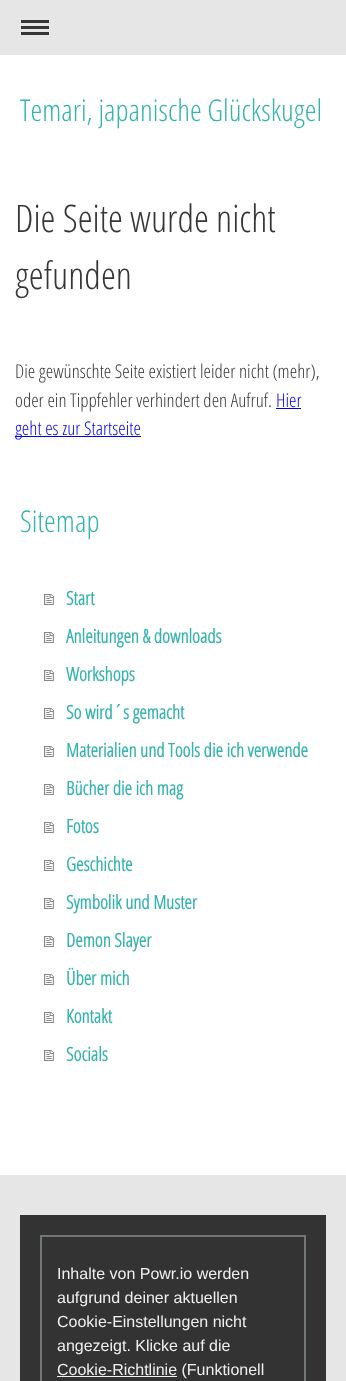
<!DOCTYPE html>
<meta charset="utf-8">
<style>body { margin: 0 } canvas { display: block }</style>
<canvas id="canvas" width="346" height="1381"></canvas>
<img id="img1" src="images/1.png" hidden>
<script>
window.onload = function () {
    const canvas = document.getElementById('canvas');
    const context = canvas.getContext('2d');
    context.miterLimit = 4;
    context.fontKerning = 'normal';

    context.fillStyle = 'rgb(255, 255, 255)';
    context.fillRect(0, 0, 346, 1381);
    context.fillStyle = 'rgb(230, 230, 230)';
    context.fillRect(0, 0, 346, 55);
    context.fillStyle = 'rgb(54, 54, 54)';
    context.fillRect(21, 26, 28, 3);
    context.fillRect(21, 20, 28, 3);
    context.fillRect(21, 32, 28, 3);
    context.fillStyle = 'rgb(0, 0, 238)';
    context.fillRect(276, 408, 25, 1);
    context.fillRect(15, 436, 126, 1);
    context.drawImage(document.getElementById('img1'), 44, 594, 10, 11);
    context.drawImage(document.getElementById('img1'), 44, 632, 10, 11);
    context.drawImage(document.getElementById('img1'), 44, 670, 10, 11);
    context.drawImage(document.getElementById('img1'), 44, 708, 10, 11);
    context.drawImage(document.getElementById('img1'), 44, 746, 10, 11);
    context.drawImage(document.getElementById('img1'), 44, 784, 10, 11);
    context.drawImage(document.getElementById('img1'), 44, 822, 10, 11);
    context.drawImage(document.getElementById('img1'), 44, 860, 10, 11);
    context.drawImage(document.getElementById('img1'), 44, 898, 10, 11);
    context.drawImage(document.getElementById('img1'), 44, 936, 10, 11);
    context.drawImage(document.getElementById('img1'), 44, 974, 10, 11);
    context.drawImage(document.getElementById('img1'), 44, 1012, 10, 11);
    context.drawImage(document.getElementById('img1'), 44, 1050, 10, 11);
    context.fillStyle = 'rgb(230, 230, 230)';
    context.fillRect(0, 1175, 346, 206);
    context.fillStyle = 'rgb(51, 51, 51)';
    context.fillRect(20, 1215, 306, 166);
    context.strokeStyle = 'rgb(113, 118, 119)';
    context.lineWidth = 2;
    context.strokeRect(41, 1236, 264, 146);
    context.fillStyle = 'rgb(239, 239, 239)';
    context.fillRect(57, 1376, 120, 1);
    context.font = '300 30px Open Sans Condensed';
    context.fillStyle = 'rgb(53, 179, 175)';
    context.fillText('Temari, japanische Glückskugel', 20, 121);
    context.font = '300 38px Open Sans Condensed';
    context.fillStyle = 'rgb(54, 54, 54)';
    context.fillText('Die Seite wurde nicht', 15, 232);
    context.fillText('gefunden', 15, 289);
    context.font = '300 19px Open Sans Condensed';
    context.fillText('Die gewünschte Seite existiert leider nicht (mehr),', 15, 378);
    context.fillText('oder ein Tippfehler verhindert den Aufruf.', 15, 407);
    context.fillStyle = 'rgb(0, 0, 238)';
    context.fillText('Hier', 276, 407);
    context.fillText('geht es zur Startseite', 15, 435);
    context.font = '300 30px Open Sans Condensed';
    context.fillStyle = 'rgb(53, 179, 175)';
    context.fillText('Sitemap', 20, 532);
    context.font = 'bold 19px Open Sans Condensed';
    context.fillText('Start', 66, 605);
    context.fillText('Anleitungen & downloads', 66, 643);
    context.fillText('Workshops', 66, 681);
    context.fillText('So wird´s gemacht', 66, 719);
    context.fillText('Materialien und Tools die ich verwende', 66, 757);
    context.fillText('Bücher die ich mag', 66, 795);
    context.fillText('Fotos', 66, 833);
    context.fillText('Geschichte', 66, 871);
    context.fillText('Symbolik und Muster', 66, 909);
    context.fillText('Demon Slayer', 66, 947);
    context.fillText('Über mich', 66, 985);
    context.fillText('Kontakt', 66, 1023);
    context.fillText('Socials', 66, 1061);
    context.font = '16px Liberation Sans';
    context.fillStyle = 'rgb(239, 239, 239)';
    context.fillText('Inhalte von Powr.io werden', 57, 1279);
    context.fillText('aufgrund deiner aktuellen', 57, 1303);
    context.fillText('Cookie-Einstellungen nicht', 57, 1327);
    context.fillText('angezeigt. Klicke auf die', 57, 1351);
    context.fillText('Cookie-Richtlinie (Funktionell', 57, 1375);
};
</script>
